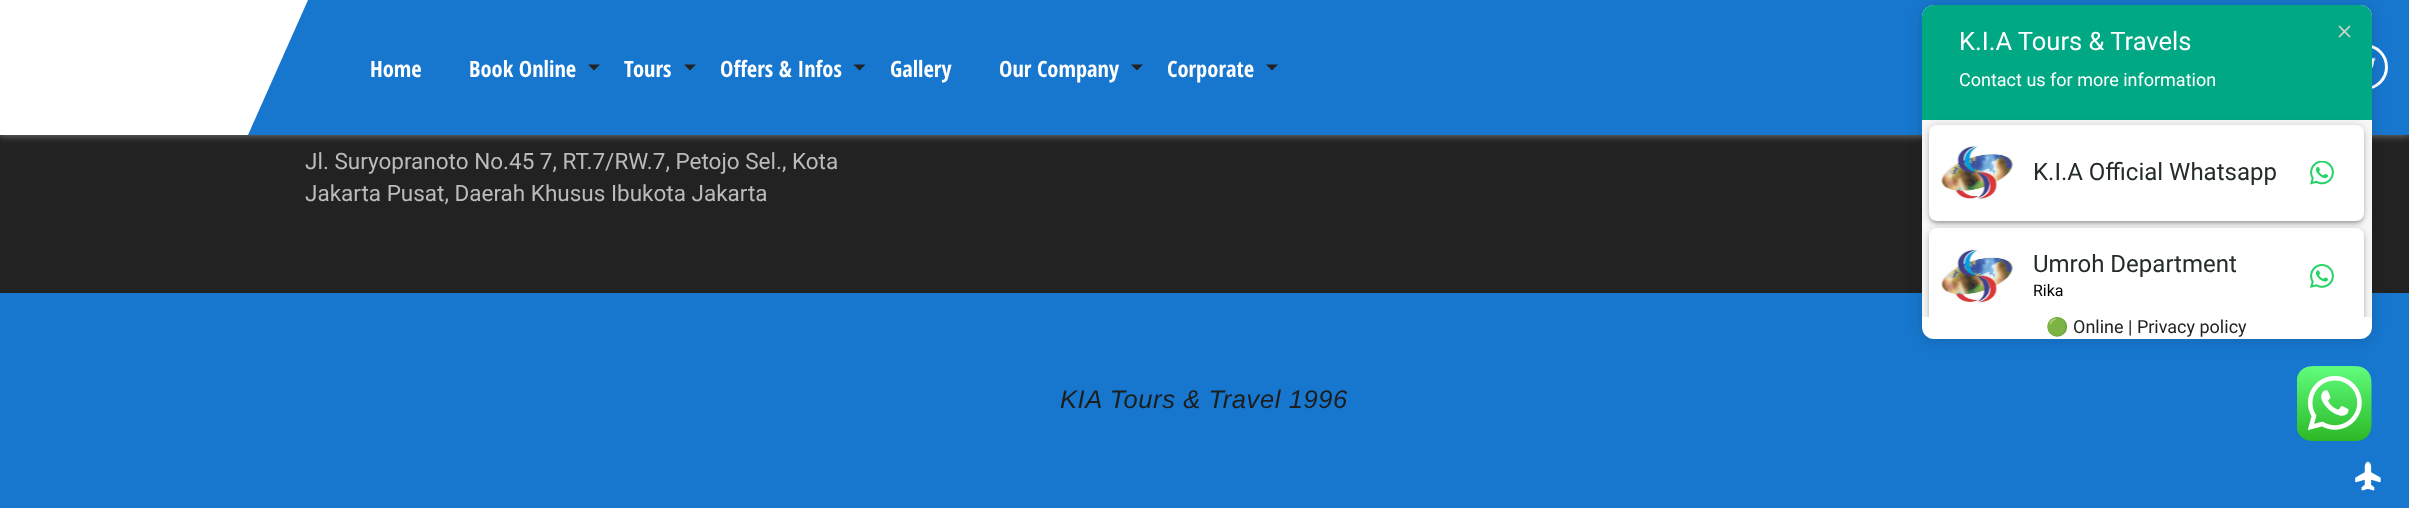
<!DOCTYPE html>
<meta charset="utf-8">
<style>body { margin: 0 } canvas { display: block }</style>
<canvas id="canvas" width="2409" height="508"></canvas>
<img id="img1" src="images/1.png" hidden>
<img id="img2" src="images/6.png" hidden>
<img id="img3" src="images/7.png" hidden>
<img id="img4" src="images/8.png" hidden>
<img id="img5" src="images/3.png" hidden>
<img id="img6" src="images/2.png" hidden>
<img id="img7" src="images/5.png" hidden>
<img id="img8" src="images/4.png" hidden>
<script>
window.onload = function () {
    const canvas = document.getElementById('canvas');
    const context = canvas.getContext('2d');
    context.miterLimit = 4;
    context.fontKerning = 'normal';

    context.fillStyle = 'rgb(34, 34, 34)';
    context.fillRect(0, 0, 2409, 508);
    context.fillStyle = 'rgba(200, 200, 200, 0.6)';
    context.filter = 'blur(4px)';
    context.beginPath();
    context.rect(0, 0, 2409, 135);
    context.fill();
    context.filter = 'none';
    context.fillStyle = 'rgb(23, 119, 206)';
    context.fillRect(248, 0, 2161, 135);
    context.fillStyle = 'rgb(255, 255, 255)';
    context.fillRect(0, 0, 248, 135);
    context.beginPath();
    context.moveTo(248, 0);
    context.lineTo(308, 0);
    context.lineTo(248, 135);
    context.closePath();
    context.fill();
    context.fillStyle = 'rgb(34, 34, 34)';
    context.beginPath();
    context.moveTo(588, 64.5);
    context.lineTo(600, 64.5);
    context.lineTo(594, 70.5);
    context.closePath();
    context.fill();
    context.beginPath();
    context.moveTo(684, 64.5);
    context.lineTo(696, 64.5);
    context.lineTo(690, 70.5);
    context.closePath();
    context.fill();
    context.beginPath();
    context.moveTo(853.5, 64.5);
    context.lineTo(865.5, 64.5);
    context.lineTo(859.5, 70.5);
    context.closePath();
    context.fill();
    context.beginPath();
    context.moveTo(1131, 64.5);
    context.lineTo(1143, 64.5);
    context.lineTo(1137, 70.5);
    context.closePath();
    context.fill();
    context.beginPath();
    context.moveTo(1266, 64.5);
    context.lineTo(1278, 64.5);
    context.lineTo(1272, 70.5);
    context.closePath();
    context.fill();
    context.beginPath();
    context.arc(2365, 67, 21.5, 0, 2 * Math.PI);
    context.strokeStyle = 'rgb(255, 255, 255)';
    context.lineWidth = 3;
    context.stroke();
    context.drawImage(document.getElementById('img1'), 2372, 57, 4, 12);
    context.fillStyle = 'rgb(23, 119, 206)';
    context.fillRect(0, 293, 2409, 215);
    context.fillStyle = 'rgba(0, 0, 0, 0.14)';
    context.filter = 'blur(7px)';
    context.beginPath();
    context.roundRect(1922, 6, 450, 335, 12);
    context.fill();
    context.filter = 'none';
    context.fillStyle = 'rgb(255, 255, 255)';
    context.beginPath();
    context.roundRect(1922, 5, 450, 334, 12);
    context.fill();
    context.fillStyle = 'rgb(0, 168, 132)';
    context.beginPath();
    context.roundRect(1922, 5, 450, 117, [12, 12, 0, 0]);
    context.fill();
    context.drawImage(document.getElementById('img2'), 2338, 25, 13, 13);
    context.drawImage(document.getElementById('img3'), 2297, 366, 75, 75);
    context.drawImage(document.getElementById('img4'), 2355, 461, 26, 30);
    context.font = 'bold 22.5px Open Sans Condensed';
    context.fillStyle = 'rgb(255, 255, 255)';
    context.fillText('Home', 370, 77);
    context.fillText('Book Online', 469, 77);
    context.fillText('Tours', 624, 77);
    context.fillText('Offers & Infos', 720, 77);
    context.fillText('Gallery', 890, 77);
    context.fillText('Our Company', 999, 77);
    context.fillText('Corporate', 1167, 77);
    context.font = '25.5px Roboto';
    context.fillText('K.I.A Tours & Travels', 1959, 50);
    context.font = '18px Roboto';
    context.fillText('Contact us for more information', 1959, 86);
    context.font = '18px Noto Color Emoji';
    context.fillStyle = 'rgb(34, 34, 34)';
    context.fillText('🟢', 2046, 333);
    context.fillStyle = 'rgb(248, 248, 248)';
    context.fillRect(1922, 120, 450, 197);
    context.save();
    context.beginPath();
    context.rect(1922, 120, 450, 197);
    context.clip();
    context.fillStyle = 'rgba(0, 0, 0, 0.14)';
    context.filter = 'blur(1.5px)';
    context.beginPath();
    context.roundRect(1929, 231, 435, 96, 8);
    context.fill();
    context.filter = 'none';
    context.restore();
    context.fillStyle = 'rgba(0, 0, 0, 0.14)';
    context.filter = 'blur(1.5px)';
    context.beginPath();
    context.roundRect(1929, 128, 435, 96, 8);
    context.fill();
    context.filter = 'none';
    context.fillStyle = 'rgba(0, 0, 0, 0.12)';
    context.filter = 'blur(1px)';
    context.beginPath();
    context.roundRect(1932, 132, 429, 90, 5);
    context.fill();
    context.filter = 'none';
    context.fillStyle = 'rgba(0, 0, 0, 0.2)';
    context.filter = 'blur(4px)';
    context.beginPath();
    context.roundRect(1929, 126, 435, 96, 8);
    context.fill();
    context.filter = 'none';
    context.fillStyle = 'rgb(255, 255, 255)';
    context.beginPath();
    context.roundRect(1929, 125, 435, 96, 8);
    context.fill();
    context.save();
    context.beginPath();
    context.rect(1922, 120, 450, 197);
    context.clip();
    context.fillStyle = 'rgba(0, 0, 0, 0.2)';
    context.filter = 'blur(4px)';
    context.beginPath();
    context.roundRect(1929, 230, 435, 96, 8);
    context.fill();
    context.filter = 'none';
    context.restore();
    context.drawImage(document.getElementById('img5'), 2310, 161, 24, 24);
    context.font = '24px Roboto';
    context.fillStyle = 'rgb(35, 43, 43)';
    context.fillText('K.I.A Official Whatsapp', 2033, 180);
    context.drawImage(document.getElementById('img6'), 1941, 145, 74, 56);
    context.font = '18px Roboto';
    context.fillStyle = 'rgb(34, 34, 34)';
    context.fillText('Online | Privacy policy', 2073, 333);
    context.save();
    context.beginPath();
    context.rect(1922, 120, 450, 197);
    context.clip();
    context.fillStyle = 'rgb(255, 255, 255)';
    context.beginPath();
    context.roundRect(1929, 228, 435, 96, 8);
    context.fill();
    context.restore();
    context.drawImage(document.getElementById('img7'), 2310, 264, 24, 24);
    context.font = '16px Roboto';
    context.fillStyle = 'rgb(0, 0, 0)';
    context.fillText('Rika', 2033, 296);
    context.font = '24px Roboto';
    context.fillStyle = 'rgb(35, 43, 43)';
    context.fillText('Umroh Department', 2033, 272);
    context.drawImage(document.getElementById('img8'), 1941, 248, 74, 57);
    context.font = '22.5px Roboto';
    context.fillStyle = 'rgb(187, 187, 187)';
    context.fillText('Jl. Suryopranoto No.45 7, RT.7/RW.7, Petojo Sel., Kota', 305, 169);
    context.fillText('Jakarta Pusat, Daerah Khusus Ibukota Jakarta', 305, 201);
    context.letterSpacing = '0.6px';
    context.font = 'italic 25.5px Liberation Sans';
    context.fillStyle = 'rgb(28, 29, 29)';
    context.fillText('KIA Tours & Travel 1996', 1060, 408);
};
</script>
